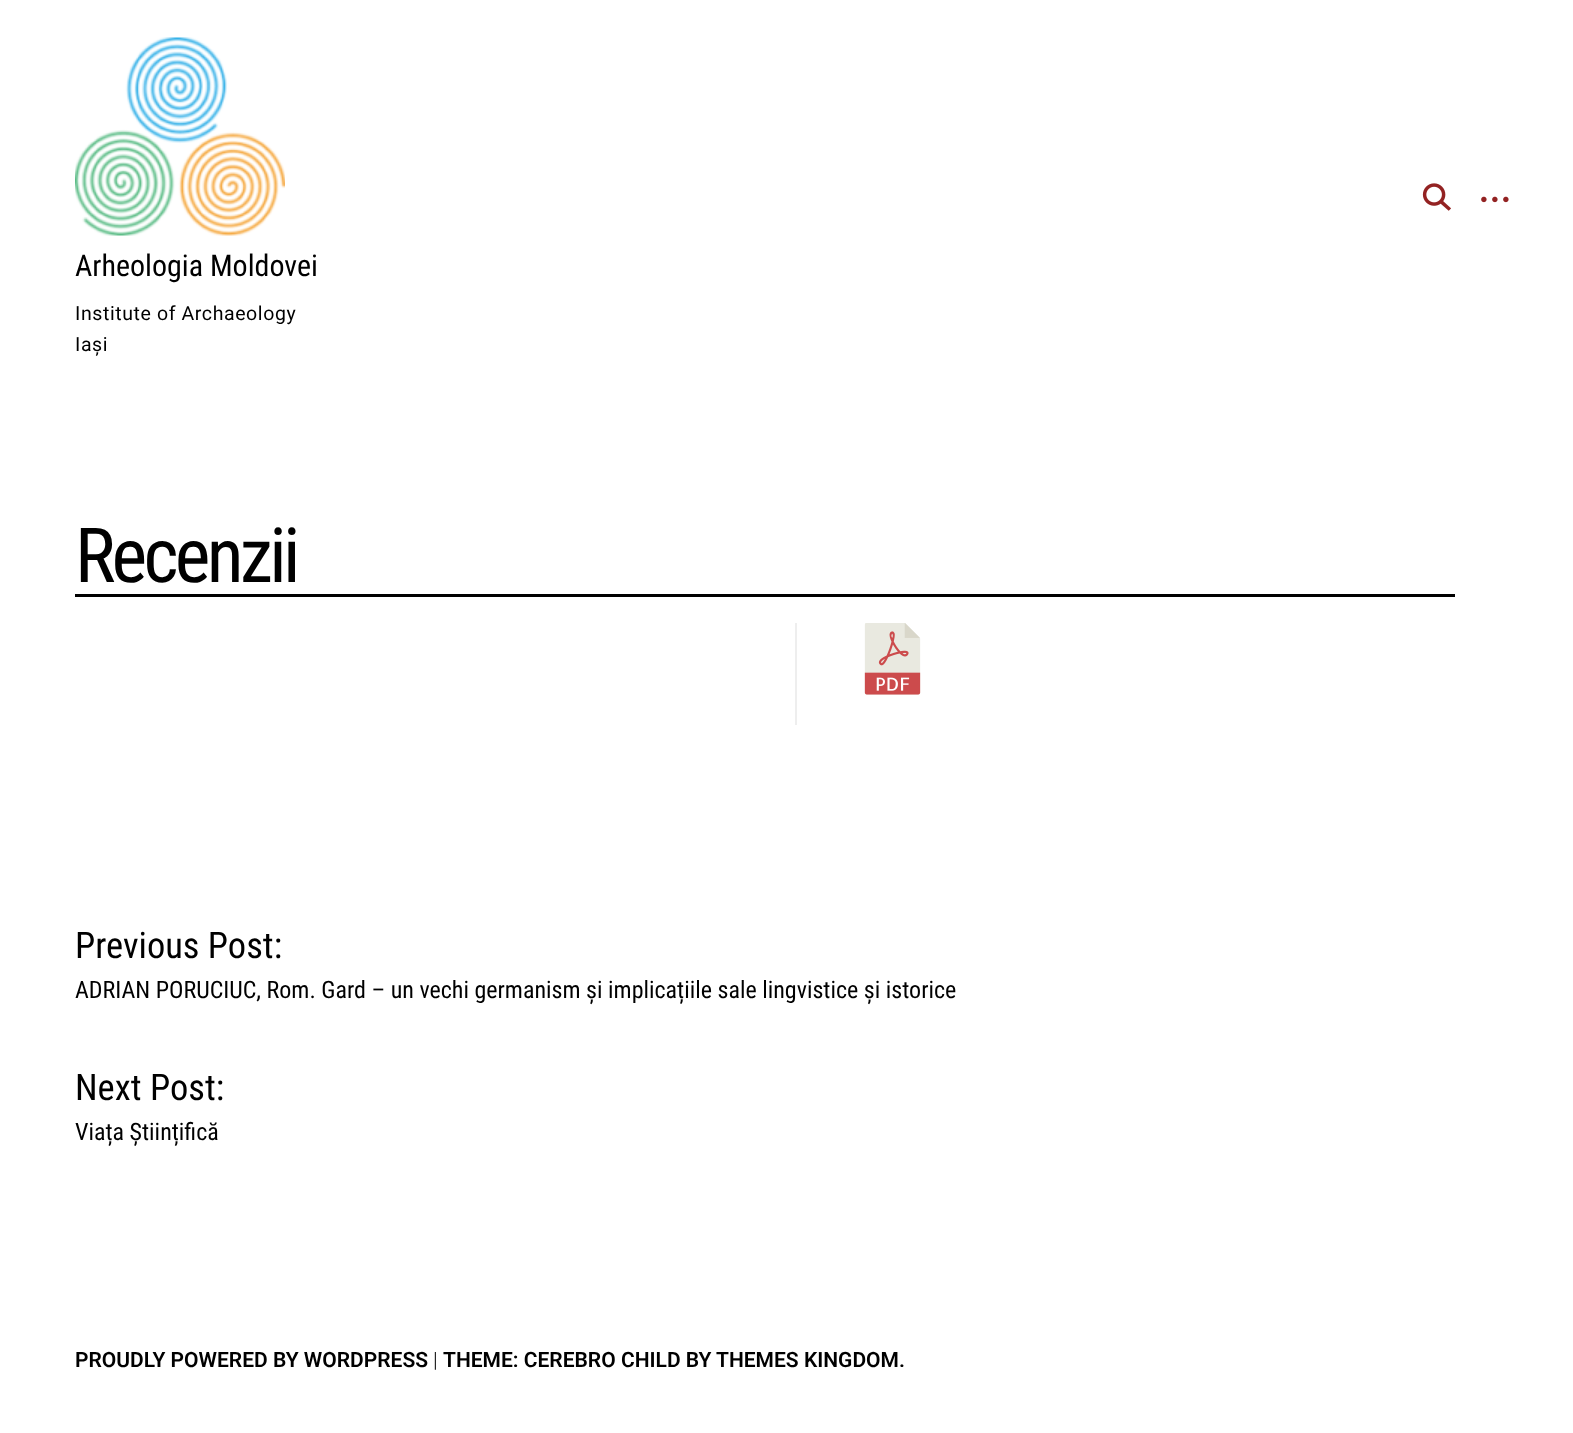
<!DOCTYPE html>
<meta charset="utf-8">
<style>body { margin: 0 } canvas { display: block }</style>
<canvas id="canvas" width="1573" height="1433"></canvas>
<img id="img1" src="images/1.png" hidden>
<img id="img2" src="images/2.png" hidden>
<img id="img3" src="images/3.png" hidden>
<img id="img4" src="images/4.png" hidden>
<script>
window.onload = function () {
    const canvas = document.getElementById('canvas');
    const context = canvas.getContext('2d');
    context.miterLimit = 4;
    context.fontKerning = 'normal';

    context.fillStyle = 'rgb(255, 255, 255)';
    context.fillRect(0, 0, 1573, 1433);
    context.drawImage(document.getElementById('img1'), 1422, 183, 29, 28);
    context.drawImage(document.getElementById('img2'), 1481, 196, 28, 7);
    context.drawImage(document.getElementById('img3'), 75, 37, 210, 199);
    context.fillStyle = 'rgb(0, 0, 0)';
    context.fillRect(75, 594, 1380, 3);
    context.fillStyle = 'rgb(238, 238, 238)';
    context.fillRect(795, 623, 2, 102);
    context.drawImage(document.getElementById('img4'), 864, 623, 57, 72);
    context.font = '30px Roboto Condensed';
    context.fillStyle = 'rgb(0, 0, 0)';
    context.fillText('Arheologia Moldovei', 75, 276);
    context.letterSpacing = '0.6px';
    context.font = '19.5px Roboto';
    context.fillText('Institute of Archaeology', 75, 320);
    context.fillText('Iași', 75, 351);
    context.letterSpacing = '-3.75px';
    context.font = '76px Roboto Condensed';
    context.fillText('Recenzii', 75, 582);
    context.letterSpacing = '0px';
    context.font = '36.5px Roboto Condensed';
    context.fillText('Previous Post:', 75, 958);
    context.font = '24px Roboto Condensed';
    context.fillText('ADRIAN PORUCIUC, Rom. Gard – un vechi germanism și implicațiile sale lingvistice și istorice', 75, 998);
    context.font = '36.5px Roboto Condensed';
    context.fillText('Next Post:', 75, 1100);
    context.font = '24px Roboto Condensed';
    context.fillText('Viața Științifică', 75, 1140);
    context.font = '600 21px Roboto';
    context.fillText('PROUDLY POWERED BY WORDPRESS', 75, 1367);
    context.font = '300 21px Roboto';
    context.fillText('|', 433, 1367);
    context.font = '600 21px Roboto';
    context.fillText('THEME: CEREBRO CHILD BY', 443, 1367);
    context.fillText('THEMES KINGDOM', 716, 1367);
    context.fillText('.', 899, 1367);
};
</script>
